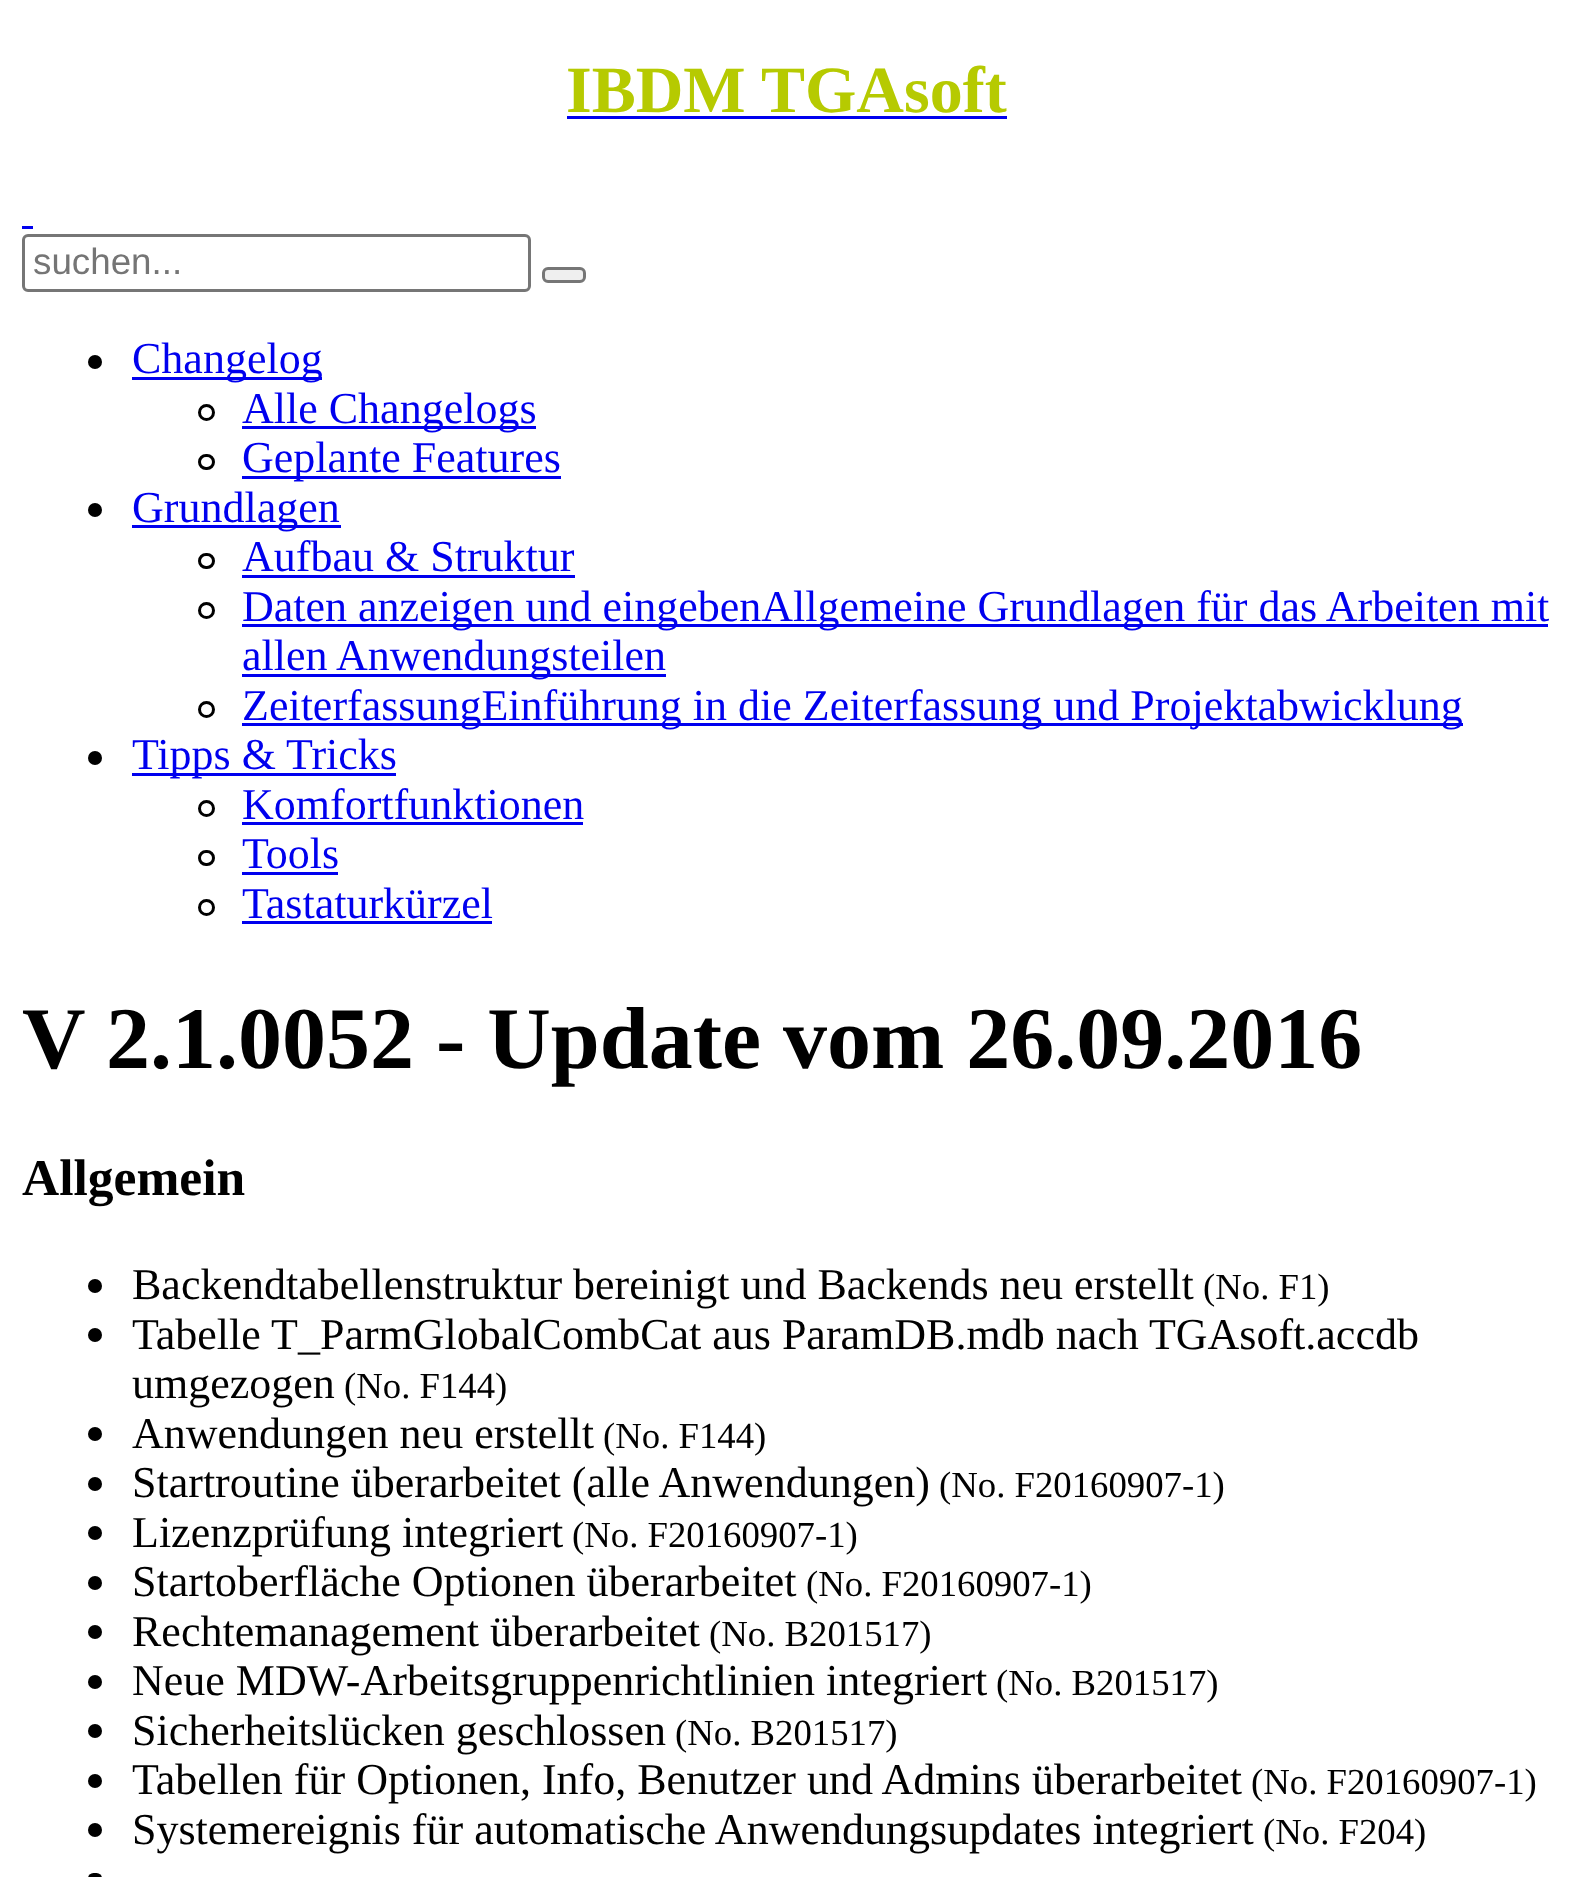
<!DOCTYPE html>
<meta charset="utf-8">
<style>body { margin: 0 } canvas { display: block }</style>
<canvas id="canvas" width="1572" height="1877"></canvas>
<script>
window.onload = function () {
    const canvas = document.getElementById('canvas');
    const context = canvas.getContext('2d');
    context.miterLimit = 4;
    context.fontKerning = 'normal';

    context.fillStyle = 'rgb(255, 255, 255)';
    context.fillRect(0, 0, 1572, 1877);
    context.fillStyle = 'rgb(0, 0, 238)';
    context.fillRect(567, 116, 440, 3);
    context.fillRect(22, 226, 11, 3);
    context.beginPath();
    context.roundRect(23.5, 235.5, 506, 55, 4.5);
    context.strokeStyle = 'rgb(118, 118, 118)';
    context.lineWidth = 3;
    context.stroke();
    context.fillStyle = 'rgb(239, 239, 239)';
    context.beginPath();
    context.roundRect(543.5, 268.5, 41, 13, 4.5);
    context.fill();
    context.stroke();
    context.fillStyle = 'rgb(0, 0, 0)';
    context.beginPath();
    context.arc(95, 362, 7, 0, 2 * Math.PI);
    context.fill();
    context.fillStyle = 'rgb(0, 0, 238)';
    context.fillRect(132, 377, 190, 3);
    context.beginPath();
    context.arc(206.5, 412.5, 7, 0, 2 * Math.PI);
    context.strokeStyle = 'rgb(0, 0, 0)';
    context.stroke();
    context.fillRect(242, 426, 294, 3);
    context.beginPath();
    context.roundRect(199.5, 455.5, 14, 13, 6.5);
    context.stroke();
    context.fillRect(242, 476, 319, 3);
    context.fillStyle = 'rgb(0, 0, 0)';
    context.beginPath();
    context.arc(95, 510, 7, 0, 2 * Math.PI);
    context.fill();
    context.fillStyle = 'rgb(0, 0, 238)';
    context.fillRect(132, 525, 209, 3);
    context.beginPath();
    context.roundRect(199.5, 554.5, 14, 13, 6.5);
    context.stroke();
    context.fillRect(242, 575, 333, 3);
    context.beginPath();
    context.arc(206.5, 610.5, 7, 0, 2 * Math.PI);
    context.stroke();
    context.fillRect(242, 624, 1306, 3);
    context.fillRect(242, 674, 424, 3);
    context.beginPath();
    context.arc(206.5, 709.5, 7, 0, 2 * Math.PI);
    context.stroke();
    context.fillRect(242, 723, 1221, 3);
    context.fillStyle = 'rgb(0, 0, 0)';
    context.beginPath();
    context.arc(95, 758, 7, 0, 2 * Math.PI);
    context.fill();
    context.fillStyle = 'rgb(0, 0, 238)';
    context.fillRect(132, 773, 264, 3);
    context.beginPath();
    context.arc(206.5, 808.5, 7, 0, 2 * Math.PI);
    context.stroke();
    context.fillRect(242, 822, 341, 3);
    context.beginPath();
    context.roundRect(199.5, 851.5, 14, 13, 6.5);
    context.stroke();
    context.fillRect(242, 872, 96, 3);
    context.beginPath();
    context.arc(206.5, 907.5, 7, 0, 2 * Math.PI);
    context.stroke();
    context.fillRect(242, 921, 250, 3);
    context.fillStyle = 'rgb(0, 0, 0)';
    context.beginPath();
    context.arc(95, 1286, 7, 0, 2 * Math.PI);
    context.fill();
    context.beginPath();
    context.arc(95, 1335, 7, 0, 2 * Math.PI);
    context.fill();
    context.beginPath();
    context.arc(95, 1434, 7, 0, 2 * Math.PI);
    context.fill();
    context.beginPath();
    context.arc(95, 1484, 7, 0, 2 * Math.PI);
    context.fill();
    context.beginPath();
    context.arc(95, 1533, 7, 0, 2 * Math.PI);
    context.fill();
    context.beginPath();
    context.arc(95, 1583, 7, 0, 2 * Math.PI);
    context.fill();
    context.beginPath();
    context.arc(95, 1632, 7, 0, 2 * Math.PI);
    context.fill();
    context.beginPath();
    context.arc(95, 1682, 7, 0, 2 * Math.PI);
    context.fill();
    context.beginPath();
    context.arc(95, 1731, 7, 0, 2 * Math.PI);
    context.fill();
    context.beginPath();
    context.arc(95, 1781, 7, 0, 2 * Math.PI);
    context.fill();
    context.beginPath();
    context.arc(95, 1830, 7, 0, 2 * Math.PI);
    context.fill();
    context.beginPath();
    context.roundRect(88, 1873, 14, 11, 7);
    context.fill();
    context.font = 'bold 66px Liberation Serif';
    context.fillStyle = 'rgb(182, 202, 1)';
    context.fillText('IBDM TGAsoft', 566, 112);
    context.font = '36.75px Liberation Sans';
    context.fillStyle = 'rgb(117, 117, 117)';
    context.fillText('suchen...', 33, 274);
    context.font = '44px Liberation Serif';
    context.fillStyle = 'rgb(0, 0, 238)';
    context.fillText('Changelog', 132, 373);
    context.fillText('Alle Changelogs', 242, 423);
    context.fillText('Geplante Features', 242, 472);
    context.fillText('Grundlagen', 132, 522);
    context.fillText('Aufbau & Struktur', 242, 571);
    context.fillText('Daten anzeigen und eingebenAllgemeine Grundlagen für das Arbeiten mit', 242, 621);
    context.fillText('allen Anwendungsteilen', 242, 670);
    context.fillText('ZeiterfassungEinführung in die Zeiterfassung und Projektabwicklung', 242, 720);
    context.fillText('Tipps & Tricks', 132, 769);
    context.fillText('Komfortfunktionen', 242, 819);
    context.fillText('Tools', 242, 868);
    context.fillText('Tastaturkürzel', 242, 918);
    context.font = 'bold 88px Liberation Serif';
    context.fillStyle = 'rgb(0, 0, 0)';
    context.fillText('V 2.1.0052 - Update vom 26.09.2016', 22, 1068);
    context.font = 'bold 51.5px Liberation Serif';
    context.fillText('Allgemein', 22, 1195);
    context.font = '44px Liberation Serif';
    context.fillText('Backendtabellenstruktur bereinigt und Backends neu erstellt', 132, 1299);
    context.font = '36.75px Liberation Serif';
    context.fillText('(No. F1)', 1203, 1299);
    context.font = '44px Liberation Serif';
    context.fillText('Tabelle T_ParmGlobalCombCat aus ParamDB.mdb nach TGAsoft.accdb', 132, 1349);
    context.fillText('umgezogen', 132, 1398);
    context.font = '36.75px Liberation Serif';
    context.fillText('(No. F144)', 344, 1398);
    context.font = '44px Liberation Serif';
    context.fillText('Anwendungen neu erstellt', 132, 1448);
    context.font = '36.75px Liberation Serif';
    context.fillText('(No. F144)', 603, 1448);
    context.font = '44px Liberation Serif';
    context.fillText('Startroutine überarbeitet (alle Anwendungen)', 132, 1497);
    context.font = '36.75px Liberation Serif';
    context.fillText('(No. F20160907-1)', 939, 1497);
    context.font = '44px Liberation Serif';
    context.fillText('Lizenzprüfung integriert', 132, 1547);
    context.font = '36.75px Liberation Serif';
    context.fillText('(No. F20160907-1)', 572, 1547);
    context.font = '44px Liberation Serif';
    context.fillText('Startoberfläche Optionen überarbeitet', 132, 1596);
    context.font = '36.75px Liberation Serif';
    context.fillText('(No. F20160907-1)', 806, 1596);
    context.font = '44px Liberation Serif';
    context.fillText('Rechtemanagement überarbeitet', 132, 1646);
    context.font = '36.75px Liberation Serif';
    context.fillText('(No. B201517)', 709, 1646);
    context.font = '44px Liberation Serif';
    context.fillText('Neue MDW-Arbeitsgruppenrichtlinien integriert', 132, 1695);
    context.font = '36.75px Liberation Serif';
    context.fillText('(No. B201517)', 996, 1695);
    context.font = '44px Liberation Serif';
    context.fillText('Sicherheitslücken geschlossen', 132, 1745);
    context.font = '36.75px Liberation Serif';
    context.fillText('(No. B201517)', 675, 1745);
    context.font = '44px Liberation Serif';
    context.fillText('Tabellen für Optionen, Info, Benutzer und Admins überarbeitet', 132, 1794);
    context.font = '36.75px Liberation Serif';
    context.fillText('(No. F20160907-1)', 1251, 1794);
    context.font = '44px Liberation Serif';
    context.fillText('Systemereignis für automatische Anwendungsupdates integriert', 132, 1844);
    context.font = '36.75px Liberation Serif';
    context.fillText('(No. F204)', 1263, 1844);
};
</script>
